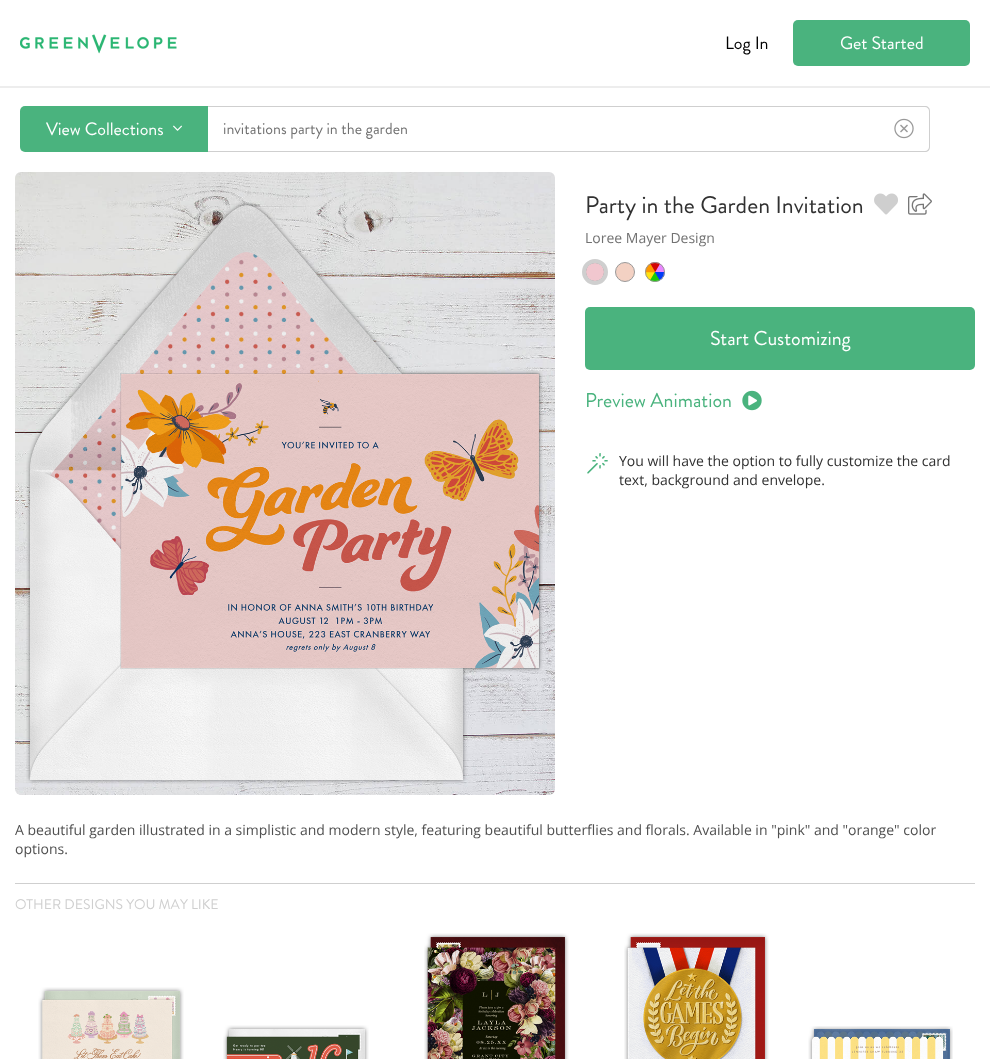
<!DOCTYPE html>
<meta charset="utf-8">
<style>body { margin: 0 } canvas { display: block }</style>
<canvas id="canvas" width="990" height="1059"></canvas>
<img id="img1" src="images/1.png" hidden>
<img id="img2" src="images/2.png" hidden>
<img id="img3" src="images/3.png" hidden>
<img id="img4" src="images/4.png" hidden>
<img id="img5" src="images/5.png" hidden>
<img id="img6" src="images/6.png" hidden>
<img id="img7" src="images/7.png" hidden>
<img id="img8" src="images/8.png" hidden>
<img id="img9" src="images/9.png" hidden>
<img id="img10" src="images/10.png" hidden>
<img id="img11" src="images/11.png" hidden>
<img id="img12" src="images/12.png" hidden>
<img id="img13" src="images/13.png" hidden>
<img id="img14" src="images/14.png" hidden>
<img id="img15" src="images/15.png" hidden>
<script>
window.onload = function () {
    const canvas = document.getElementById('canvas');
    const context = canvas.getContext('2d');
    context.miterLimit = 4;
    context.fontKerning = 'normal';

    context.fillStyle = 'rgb(255, 255, 255)';
    context.fillRect(0, 0, 990, 1059);
    context.drawImage(document.getElementById('img1'), 20, 34, 157, 20);
    context.fillStyle = 'rgb(74, 179, 126)';
    context.beginPath();
    context.roundRect(793, 20, 177, 46, 5);
    context.fill();
    context.fillStyle = 'rgb(237, 237, 237)';
    context.fillRect(0, 86, 990, 2);
    context.fillStyle = 'rgb(74, 179, 126)';
    context.beginPath();
    context.roundRect(20, 106, 188, 46, [5, 0, 0, 5]);
    context.fill();
    context.drawImage(document.getElementById('img2'), 173, 125, 9, 6);
    context.fillStyle = 'rgb(207, 207, 207)';
    context.beginPath();
    context.moveTo(208, 106);
    context.lineTo(925, 106);
    context.bezierCurveTo(928, 106, 930, 108, 930, 111);
    context.lineTo(930, 147);
    context.bezierCurveTo(930, 150, 928, 152, 925, 152);
    context.lineTo(208, 152);
    context.closePath();
    context.moveTo(208, 107);
    context.lineTo(925, 107);
    context.bezierCurveTo(927, 107, 929, 109, 929, 111);
    context.lineTo(929, 147);
    context.bezierCurveTo(929, 149, 927, 151, 925, 151);
    context.lineTo(208, 151);
    context.closePath();
    context.fill('evenodd');
    context.drawImage(document.getElementById('img3'), 894, 118, 20, 21);
    context.drawImage(document.getElementById('img4'), 15, 172, 540, 623);
    context.drawImage(document.getElementById('img5'), 26, 202, 517, 582);
    context.drawImage(document.getElementById('img6'), 874, 193, 24, 22);
    context.drawImage(document.getElementById('img7'), 908, 193, 24, 22);
    context.fillStyle = 'rgb(241, 199, 207)';
    context.beginPath();
    context.arc(595, 272, 9.5, 0, 2 * Math.PI);
    context.fill();
    context.strokeStyle = 'rgb(153, 153, 153)';
    context.stroke();
    context.beginPath();
    context.arc(595, 272, 11, 0, 2 * Math.PI);
    context.strokeStyle = 'rgb(207, 207, 207)';
    context.lineWidth = 4;
    context.stroke();
    context.fillStyle = 'rgb(243, 209, 195)';
    context.beginPath();
    context.arc(625, 272, 9.5, 0, 2 * Math.PI);
    context.fill();
    context.strokeStyle = 'rgb(153, 153, 153)';
    context.lineWidth = 1;
    context.stroke();
    context.drawImage(document.getElementById('img8'), 645, 262, 20, 20);
    context.beginPath();
    context.arc(655, 272, 9.5, 0, 2 * Math.PI);
    context.stroke();
    context.fillStyle = 'rgb(74, 179, 126)';
    context.beginPath();
    context.roundRect(585, 307, 390, 63, 5);
    context.fill();
    context.drawImage(document.getElementById('img9'), 742, 390, 20, 21);
    context.drawImage(document.getElementById('img10'), 587, 453, 21, 21);
    context.fillStyle = 'rgb(207, 207, 207)';
    context.fillRect(15, 883, 960, 1);
    context.drawImage(document.getElementById('img11'), 38, 987, 146, 72);
    context.drawImage(document.getElementById('img12'), 223, 1025, 146, 34);
    context.drawImage(document.getElementById('img13'), 424, 933, 145, 126);
    context.drawImage(document.getElementById('img14'), 624, 933, 145, 126);
    context.drawImage(document.getElementById('img15'), 808, 1026, 145, 33);
    context.font = '18px Brandon Grotesque';
    context.fillStyle = 'rgb(0, 0, 0)';
    context.fillText('Log In', 725, 49);
    context.fillStyle = 'rgb(255, 255, 255)';
    context.fillText('Get Started', 840, 49);
    context.fillText('View Collections', 46, 135);
    context.font = '16px Brandon Grotesque';
    context.fillStyle = 'rgb(114, 114, 114)';
    context.fillText('invitations party in the garden', 223, 134);
    context.font = '24px Brandon Grotesque';
    context.fillStyle = 'rgb(49, 49, 49)';
    context.fillText('Party in the Garden Invitation', 585, 213);
    context.font = '14px Open Sans';
    context.fillStyle = 'rgb(114, 114, 114)';
    context.fillText('Loree Mayer Design', 585, 243);
    context.font = '20px Brandon Grotesque';
    context.fillStyle = 'rgb(255, 255, 255)';
    context.fillText('Start Customizing', 710, 345);
    context.fillStyle = 'rgb(74, 179, 126)';
    context.fillText('Preview Animation', 585, 407);
    context.font = '14px Open Sans';
    context.fillStyle = 'rgb(49, 49, 49)';
    context.fillText('You will have the option to fully customize the card', 619, 466);
    context.fillText('text, background and envelope.', 619, 485);
    context.fillStyle = 'rgb(80, 80, 80)';
    context.fillText('A beautiful garden illustrated in a simplistic and modern style, featuring beautiful butterflies and florals. Available in "pink" and "orange" color', 15, 835);
    context.fillText('options.', 15, 854);
    context.font = '14px Brandon Grotesque';
    context.fillStyle = 'rgb(207, 207, 207)';
    context.fillText('OTHER DESIGNS YOU MAY LIKE', 15, 909);
};
</script>
